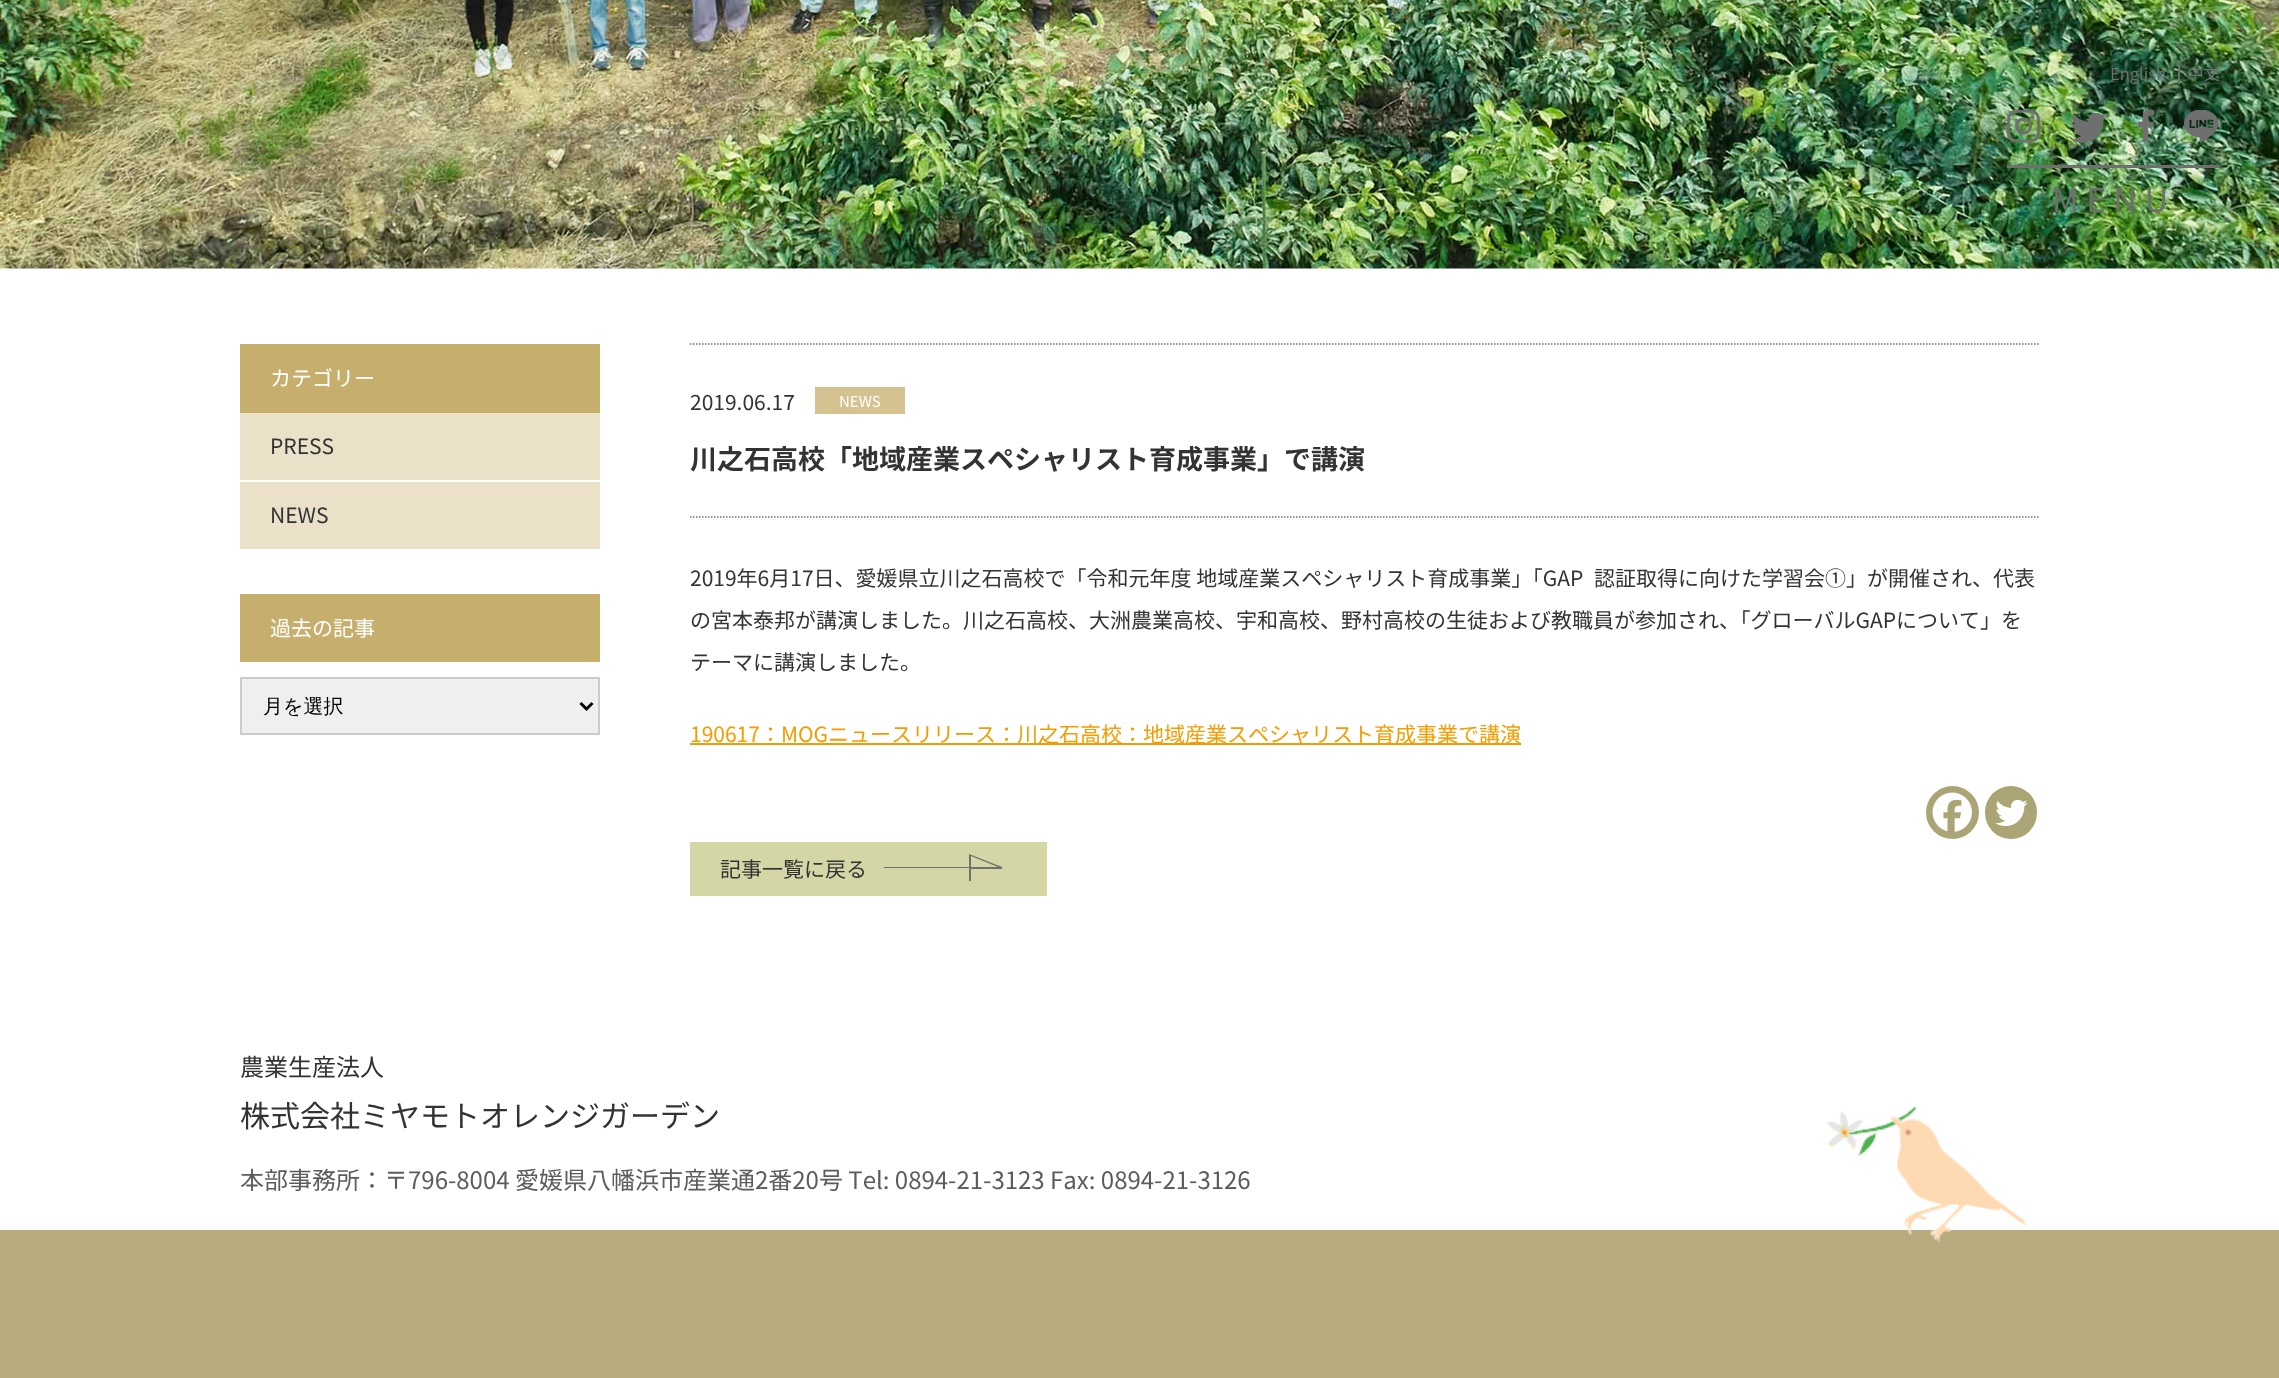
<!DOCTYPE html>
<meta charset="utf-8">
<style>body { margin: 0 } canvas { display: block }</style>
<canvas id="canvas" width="2279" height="1378"></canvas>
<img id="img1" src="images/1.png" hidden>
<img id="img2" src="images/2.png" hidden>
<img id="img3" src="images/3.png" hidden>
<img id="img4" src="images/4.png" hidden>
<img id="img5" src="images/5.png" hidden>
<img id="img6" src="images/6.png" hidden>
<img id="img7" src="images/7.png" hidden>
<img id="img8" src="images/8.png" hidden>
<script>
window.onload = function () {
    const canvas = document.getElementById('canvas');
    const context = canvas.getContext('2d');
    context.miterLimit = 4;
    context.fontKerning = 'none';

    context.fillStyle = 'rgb(255, 255, 255)';
    context.fillRect(0, 0, 2279, 1378);
    context.drawImage(document.getElementById('img1'), 0, 0, 2279, 269);
    context.fillStyle = 'rgb(111, 111, 111)';
    context.fillRect(2178, 60, 2, 24);
    context.drawImage(document.getElementById('img2'), 2007, 110, 33, 33);
    context.drawImage(document.getElementById('img3'), 2070, 113, 37, 30);
    context.drawImage(document.getElementById('img4'), 2138, 110, 16, 32);
    context.drawImage(document.getElementById('img5'), 2184, 110, 35, 33);
    context.fillRect(2007, 165, 213, 3);
    context.fillStyle = 'rgb(198, 174, 108)';
    context.fillRect(240, 344, 360, 69);
    context.fillStyle = 'rgb(234, 225, 200)';
    context.fillRect(240, 413, 360, 67);
    context.fillRect(240, 482, 360, 67);
    context.fillStyle = 'rgb(198, 174, 108)';
    context.fillRect(240, 594, 360, 68);
    context.fillStyle = 'rgb(239, 239, 239)';
    context.beginPath();
    context.rect(241, 678, 358, 56);
    context.fill();
    context.strokeStyle = 'rgb(204, 204, 204)';
    context.lineWidth = 2;
    context.stroke();
    context.beginPath();
    context.moveTo(580.5, 703);
    context.lineTo(586.5, 709);
    context.lineTo(592.5, 703);
    context.strokeStyle = 'rgb(0, 0, 0)';
    context.lineWidth = 3;
    context.stroke();
    context.beginPath();
    context.moveTo(690, 344);
    context.lineTo(2040, 344);
    context.strokeStyle = 'rgb(111, 111, 111)';
    context.lineWidth = 1.5;
    context.setLineDash([1.5, 1.5]);
    context.stroke();
    context.beginPath();
    context.moveTo(690, 517);
    context.lineTo(2040, 517);
    context.stroke();
    context.fillStyle = 'rgb(212, 194, 145)';
    context.fillRect(815, 387, 90, 27);
    context.fillStyle = 'rgb(244, 156, 0)';
    context.fillRect(690, 743, 831, 2);
    context.fillStyle = 'rgb(171, 164, 117)';
    context.beginPath();
    context.arc(1952.5, 812.5, 26.5, 0, 2 * Math.PI);
    context.fill();
    context.drawImage(document.getElementById('img6'), 1932, 792, 40, 40);
    context.beginPath();
    context.roundRect(1985, 786, 52, 53, 26);
    context.fill();
    context.drawImage(document.getElementById('img7'), 1995, 799, 33, 28);
    context.fillStyle = 'rgb(212, 214, 166)';
    context.fillRect(690, 842, 357, 54);
    context.fillStyle = 'rgb(112, 112, 112)';
    context.beginPath();
    context.moveTo(971, 881);
    context.lineTo(969, 881);
    context.lineTo(969, 868);
    context.lineTo(884, 868);
    context.lineTo(884, 867);
    context.lineTo(969, 867);
    context.lineTo(969, 854);
    context.lineTo(1002, 867);
    context.lineTo(1002, 869);
    context.lineTo(971, 869);
    context.closePath();
    context.moveTo(971, 867);
    context.lineTo(998, 867);
    context.lineTo(971, 856);
    context.closePath();
    context.fill();
    context.fillStyle = 'rgb(185, 170, 126)';
    context.fillRect(0, 1230, 2279, 148);
    context.drawImage(document.getElementById('img8'), 1827, 1106, 200, 137);
    context.font = '16.5px Noto Sans JP';
    context.fillStyle = 'rgb(111, 111, 111)';
    context.fillText('English', 2110, 80);
    context.fillText('中文', 2187, 80);
    context.letterSpacing = '7.5px';
    context.font = '33px Noto Sans JP';
    context.fillText('MENU', 2052, 212);
    context.letterSpacing = '0px';
    context.font = '21px Noto Sans JP';
    context.fillStyle = 'rgb(255, 255, 255)';
    context.fillText('カテゴリー', 270, 386);
    context.fillStyle = 'rgb(51, 51, 51)';
    context.fillText('PRESS', 270, 454);
    context.fillText('NEWS', 270, 523);
    context.fillStyle = 'rgb(255, 255, 255)';
    context.fillText('過去の記事', 270, 636);
    context.font = '500 20px WenQuanYi Zen Hei';
    context.fillStyle = 'rgb(0, 0, 0)';
    context.fillText('月を選択', 263, 713);
    context.font = '21px Noto Sans JP';
    context.fillStyle = 'rgb(51, 51, 51)';
    context.fillText('2019.06.17', 690, 410);
    context.font = '15px Noto Sans JP';
    context.fillStyle = 'rgb(255, 255, 255)';
    context.fillText('NEWS', 839, 407);
    context.font = 'bold 27px Noto Sans JP';
    context.fillStyle = 'rgb(51, 51, 51)';
    context.fillText('川之石高校「地域産業スペシャリスト育成事業」で講演', 690, 469);
    context.font = '21px Noto Sans JP';
    context.fillText('2019年6月17日、愛媛県立川之石高校で「令和元年度 地域産業スペシャリスト育成事業」「GAP', 690, 586);
    context.fillText('認証取得に向けた学習会①」が開催され、代表', 1594, 586);
    context.fillText('の宮本泰邦が講演しました。川之石高校、大洲農業高校、宇和高校、野村高校の生徒および教職員が参加され、「グローバルGAPについて」を', 690, 628);
    context.fillText('テーマに講演しました。', 690, 670);
    context.fillStyle = 'rgb(244, 156, 0)';
    context.fillText('190617：MOGニュースリリース：川之石高校：地域産業スペシャリスト育成事業で講演', 690, 742);
    context.fillStyle = 'rgb(51, 51, 51)';
    context.fillText('記事一覧に戻る', 720, 877);
    context.font = '24px Noto Sans JP';
    context.fillText('農業生産法人', 240, 1076);
    context.font = '30px Noto Sans JP';
    context.fillText('株式会社ミヤモトオレンジガーデン', 240, 1127);
    context.font = '24px Noto Sans JP';
    context.fillStyle = 'rgb(92, 92, 92)';
    context.fillText('本部事務所：〒796-8004 愛媛県八幡浜市産業通2番20号 Tel: 0894-21-3123 Fax: 0894-21-3126', 240, 1189);
};
</script>
